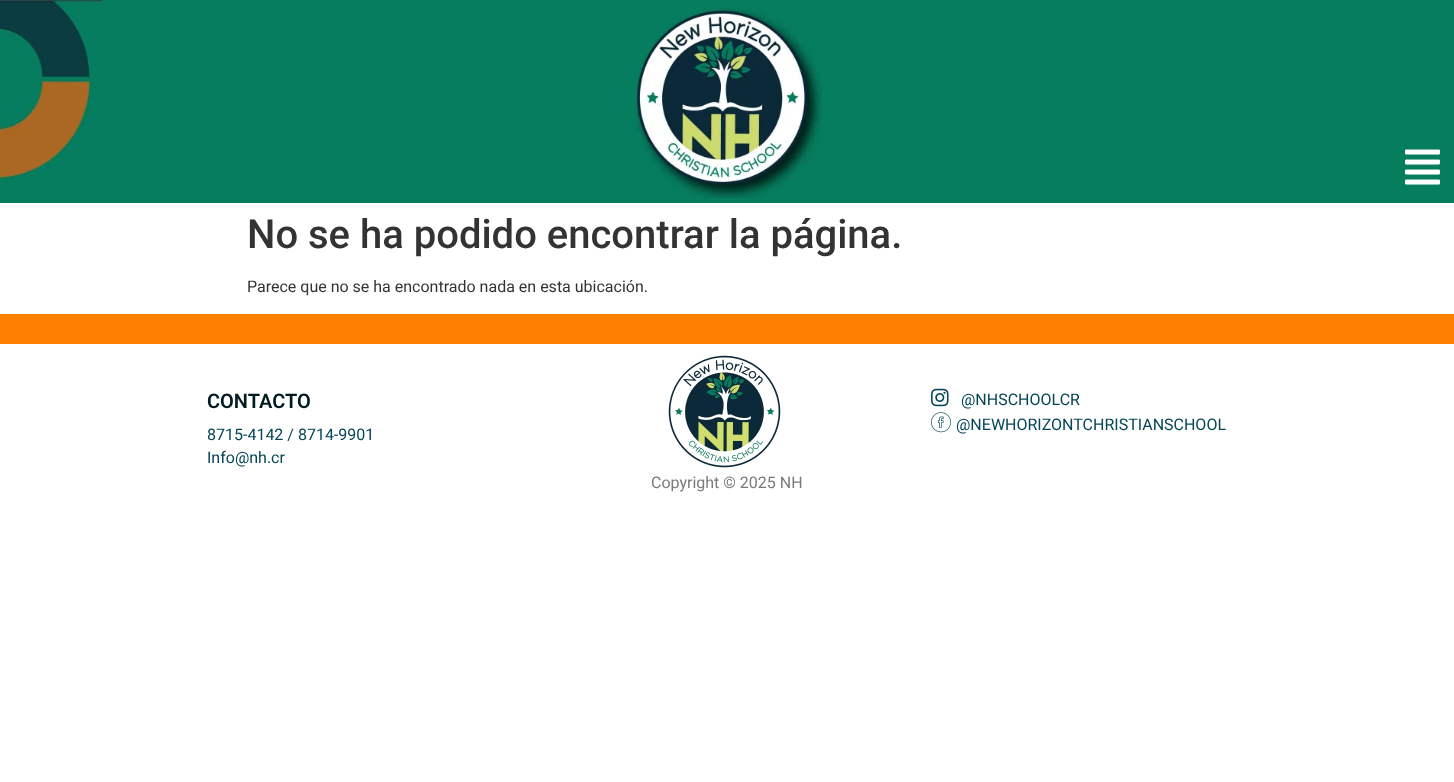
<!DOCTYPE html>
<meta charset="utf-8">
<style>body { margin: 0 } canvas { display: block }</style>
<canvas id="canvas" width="1454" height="782"></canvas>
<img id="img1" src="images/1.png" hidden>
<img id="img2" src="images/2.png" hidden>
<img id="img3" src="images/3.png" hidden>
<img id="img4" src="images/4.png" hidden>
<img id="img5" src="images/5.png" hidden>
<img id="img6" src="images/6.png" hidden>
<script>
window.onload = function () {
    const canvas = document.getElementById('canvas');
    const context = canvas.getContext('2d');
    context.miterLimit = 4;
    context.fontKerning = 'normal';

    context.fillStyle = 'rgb(255, 255, 255)';
    context.fillRect(0, 0, 1454, 782);
    context.fillStyle = 'rgb(6, 125, 93)';
    context.fillRect(0, 0, 1454, 203);
    context.drawImage(document.getElementById('img1'), 0, 0, 102, 179);
    context.drawImage(document.getElementById('img2'), 635, 8, 187, 190);
    context.drawImage(document.getElementById('img3'), 1405, 149, 35, 36);
    context.fillStyle = 'rgb(253, 128, 2)';
    context.fillRect(0, 314, 1454, 30);
    context.drawImage(document.getElementById('img4'), 668, 355, 113, 113);
    context.drawImage(document.getElementById('img5'), 931, 388, 18, 19);
    context.drawImage(document.getElementById('img6'), 931, 412, 20, 21);
    context.font = '500 40px Roboto';
    context.fillStyle = 'rgb(51, 51, 51)';
    context.fillText('No se ha podido encontrar la página.', 247, 248);
    context.font = '16px Roboto';
    context.fillText('Parece que no se ha encontrado nada en esta ubicación.', 247, 292);
    context.font = '600 20px Roboto';
    context.fillStyle = 'rgb(2, 26, 33)';
    context.fillText('CONTACTO', 207, 408);
    context.font = '16px Roboto';
    context.fillStyle = 'rgb(4, 69, 87)';
    context.fillText('8715-4142 / 8714-9901', 207, 440);
    context.fillText('Info@nh.cr', 207, 463);
    context.fillText('@NHSCHOOLCR', 961, 405);
    context.fillText('@NEWHORIZONTCHRISTIANSCHOOL', 956, 430);
    context.fillStyle = 'rgb(122, 122, 122)';
    context.fillText('Copyright © 2025 NH', 651, 488);
};
</script>
